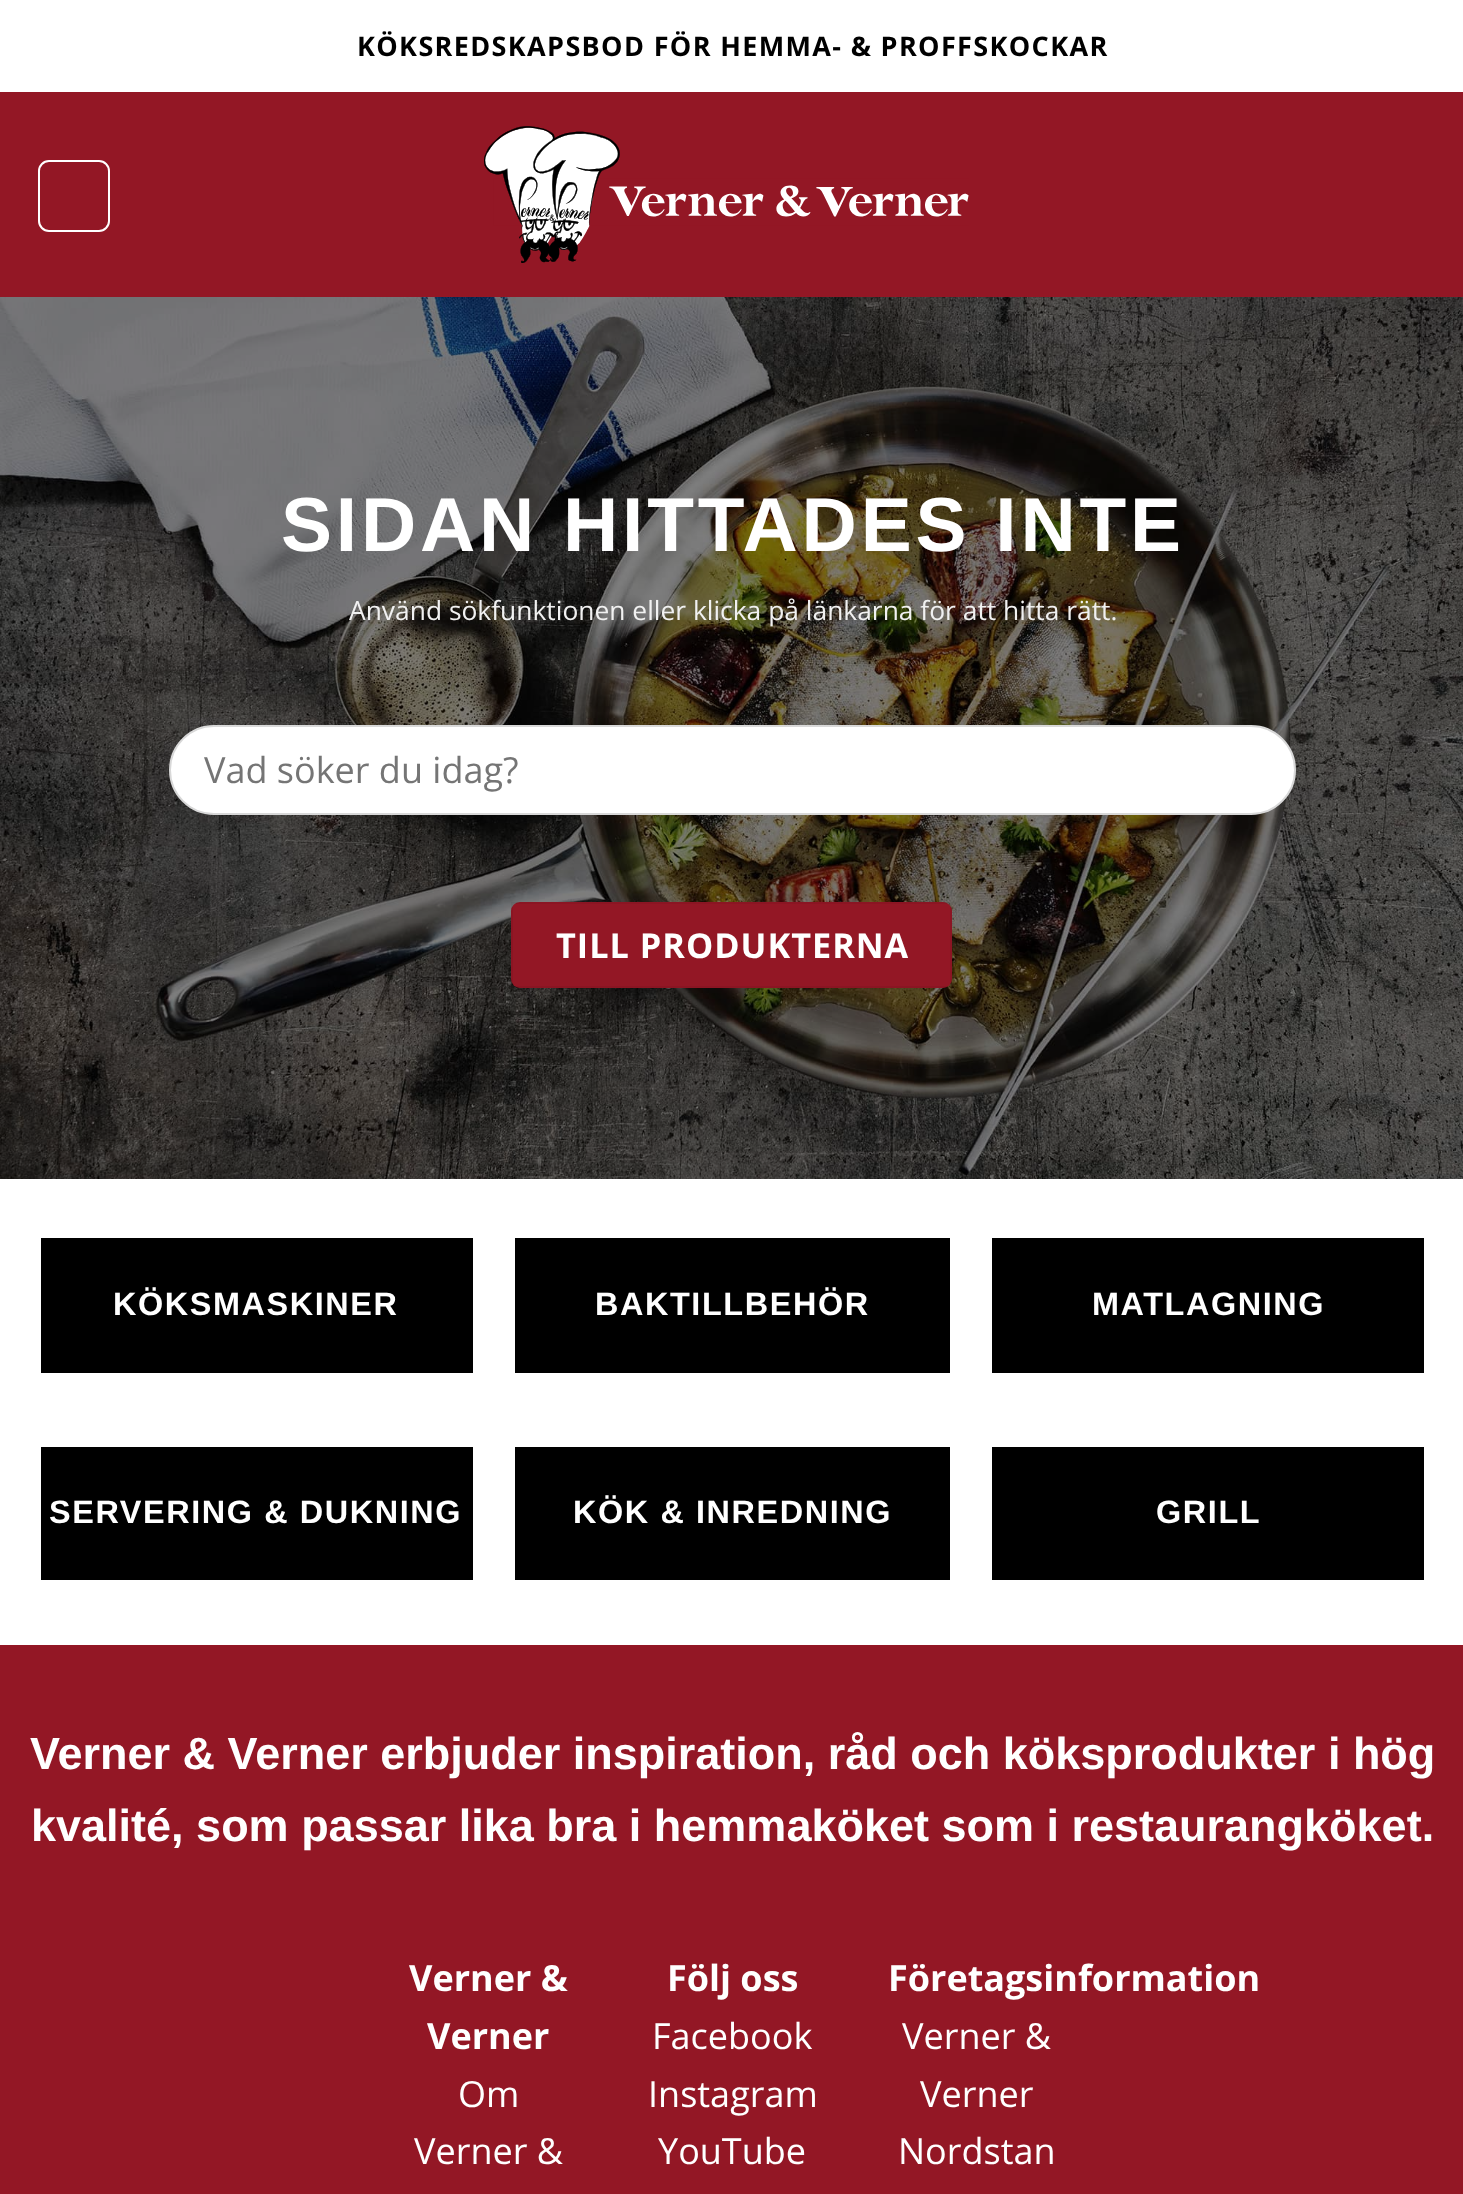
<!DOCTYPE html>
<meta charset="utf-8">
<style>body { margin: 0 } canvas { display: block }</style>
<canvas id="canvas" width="1463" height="2194"></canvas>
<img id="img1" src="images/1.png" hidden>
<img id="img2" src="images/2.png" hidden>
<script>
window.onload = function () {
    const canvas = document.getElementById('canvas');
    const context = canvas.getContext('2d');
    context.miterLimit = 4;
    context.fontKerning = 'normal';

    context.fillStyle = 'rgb(255, 255, 255)';
    context.fillRect(0, 0, 1463, 2194);
    context.fillStyle = 'rgb(147, 23, 37)';
    context.fillRect(0, 92, 1463, 205);
    context.beginPath();
    context.roundRect(39, 161, 70, 70, 10);
    context.strokeStyle = 'rgb(255, 255, 255)';
    context.lineWidth = 2;
    context.stroke();
    context.drawImage(document.getElementById('img1'), 484, 126, 485, 137);
    context.drawImage(document.getElementById('img2'), 0, 297, 1463, 882);
    context.fillStyle = 'rgb(255, 255, 255)';
    context.beginPath();
    context.roundRect(170, 726, 1125, 88, 44);
    context.fill();
    context.strokeStyle = 'rgb(216, 216, 216)';
    context.stroke();
    context.fillStyle = 'rgb(147, 23, 37)';
    context.beginPath();
    context.roundRect(511, 902, 441, 86, 9);
    context.fill();
    context.strokeStyle = 'rgba(0, 0, 0, 0.05)';
    context.strokeRect(512, 903, 439, 84);
    context.fillStyle = 'rgb(0, 0, 0)';
    context.fillRect(41, 1238, 432, 135);
    context.fillRect(515, 1238, 435, 135);
    context.fillRect(992, 1238, 432, 135);
    context.fillRect(41, 1447, 432, 133);
    context.fillRect(515, 1447, 435, 133);
    context.fillRect(992, 1447, 432, 133);
    context.fillStyle = 'rgb(147, 23, 37)';
    context.fillRect(0, 1645, 1463, 549);
    context.letterSpacing = '1.35px';
    context.font = 'bold 27px Open Sans';
    context.fillStyle = 'rgb(0, 0, 0)';
    context.fillText('KÖKSREDSKAPSBOD FÖR HEMMA- & PROFFSKOCKAR', 357, 56);
    context.letterSpacing = '3.8px';
    context.font = 'bold 76.5px Liberation Sans';
    context.fillStyle = 'rgb(255, 255, 255)';
    context.fillText('SIDAN HITTADES INTE', 281, 551);
    context.letterSpacing = '0px';
    context.font = '26.4px Open Sans';
    context.fillStyle = 'rgb(241, 241, 241)';
    context.fillText('Använd sökfunktionen eller klicka på länkarna för att hitta rätt.', 349, 620);
    context.font = '36px Open Sans';
    context.fillStyle = 'rgb(117, 117, 117)';
    context.fillText('Vad söker du idag?', 204, 783);
    context.letterSpacing = '1px';
    context.font = 'bold 34.25px Open Sans';
    context.fillStyle = 'rgb(255, 255, 255)';
    context.fillText('TILL PRODUKTERNA', 556, 958);
    context.letterSpacing = '1.6px';
    context.font = 'bold 32.4px Liberation Sans';
    context.fillText('KÖKSMASKINER', 113, 1315);
    context.fillText('BAKTILLBEHÖR', 595, 1315);
    context.fillText('MATLAGNING', 1092, 1315);
    context.fillText('SERVERING & DUKNING', 49, 1523);
    context.fillText('KÖK & INREDNING', 573, 1523);
    context.fillText('GRILL', 1156, 1523);
    context.letterSpacing = '0px';
    context.font = 'bold 45px Liberation Sans';
    context.fillText('Verner & Verner erbjuder inspiration, råd och köksprodukter i hög', 30, 1769);
    context.fillText('kvalité, som passar lika bra i hemmaköket som i restaurangköket.', 31, 1841);
    context.font = 'bold 36px Open Sans';
    context.fillText('Verner &', 409, 1991);
    context.fillText('Verner', 427, 2049);
    context.font = '36px Open Sans';
    context.fillText('Om', 458, 2107);
    context.fillText('Verner &', 414, 2164);
    context.font = 'bold 36px Open Sans';
    context.fillText('Följ oss', 667, 1991);
    context.font = '36px Open Sans';
    context.fillText('Facebook', 652, 2049);
    context.fillText('Instagram', 648, 2107);
    context.fillText('YouTube', 658, 2164);
    context.font = 'bold 36px Open Sans';
    context.fillText('Företagsinformation', 888, 1991);
    context.font = '36px Open Sans';
    context.fillText('Verner &', 902, 2049);
    context.fillText('Verner', 920, 2107);
    context.fillText('Nordstan', 898, 2164);
};
</script>
